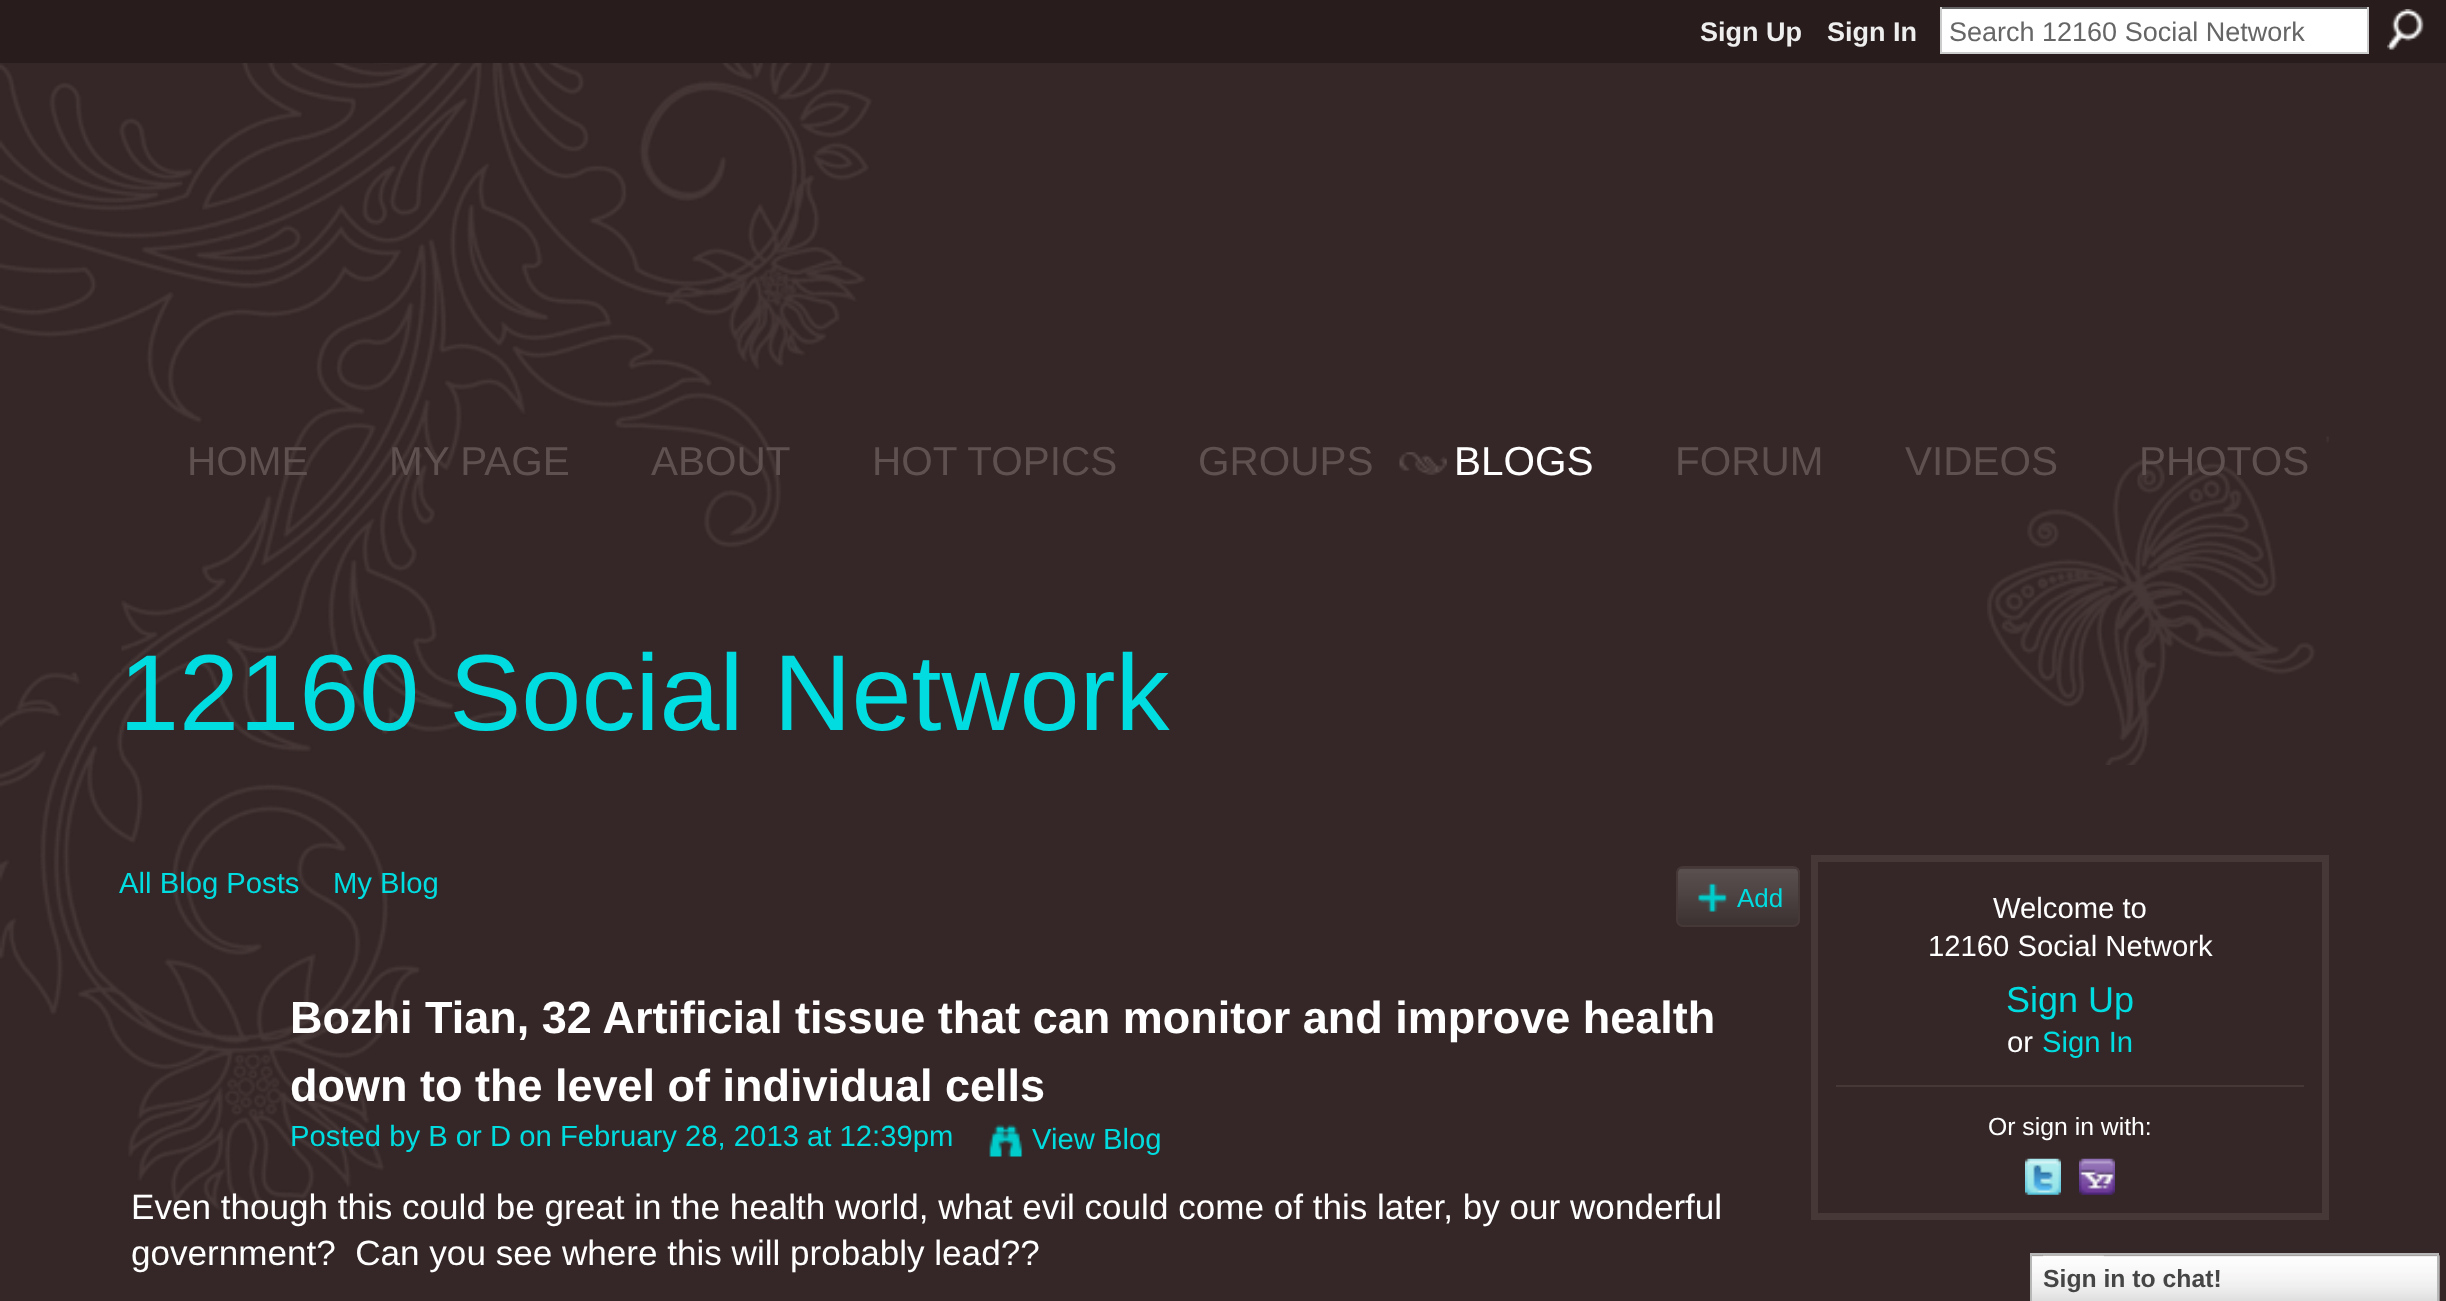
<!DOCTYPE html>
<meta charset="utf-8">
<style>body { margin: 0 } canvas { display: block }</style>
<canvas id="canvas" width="2446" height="1301"></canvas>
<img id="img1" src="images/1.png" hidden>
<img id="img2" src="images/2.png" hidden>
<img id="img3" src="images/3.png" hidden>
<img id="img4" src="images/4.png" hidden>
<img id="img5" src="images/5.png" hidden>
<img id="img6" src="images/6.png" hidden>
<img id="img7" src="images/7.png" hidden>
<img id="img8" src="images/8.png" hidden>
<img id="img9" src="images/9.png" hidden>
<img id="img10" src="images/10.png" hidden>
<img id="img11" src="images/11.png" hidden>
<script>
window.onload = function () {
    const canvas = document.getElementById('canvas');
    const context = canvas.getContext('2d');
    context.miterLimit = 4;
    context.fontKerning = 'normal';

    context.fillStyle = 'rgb(53, 39, 39)';
    context.fillRect(0, 0, 2446, 1301);
    context.drawImage(document.getElementById('img1'), 0, 63, 874, 1147);
    context.fillStyle = 'rgb(40, 28, 28)';
    context.fillRect(0, 0, 2446, 63);
    context.fillStyle = 'rgb(255, 255, 255)';
    context.fillRect(1942, 9, 425, 43);
    context.fillStyle = 'rgb(102, 102, 102)';
    context.fillRect(1940, 7, 429, 2);
    context.fillStyle = 'rgb(204, 204, 204)';
    context.fillRect(2367, 7, 2, 47);
    context.fillRect(1940, 52, 429, 2);
    context.fillRect(1940, 7, 2, 47);
    context.drawImage(document.getElementById('img2'), 2387, 9, 37, 41);
    context.drawImage(document.getElementById('img3'), 1987, 436, 342, 329);
    context.drawImage(document.getElementById('img4'), 1399, 452, 48, 23);
    context.drawImage(document.getElementById('img5'), 1676, 868, 124, 59);
    context.beginPath();
    context.roundRect(1677, 867, 122, 59, 6);
    context.strokeStyle = 'rgb(71, 56, 56)';
    context.lineWidth = 2;
    context.stroke();
    context.drawImage(document.getElementById('img6'), 1698, 883, 29, 29);
    context.drawImage(document.getElementById('img7'), 989, 1124, 34, 33);
    context.lineWidth = 7;
    context.strokeRect(1814.5, 858.5, 511, 358);
    context.fillStyle = 'rgb(71, 56, 56)';
    context.fillRect(1836, 1085, 468, 2);
    context.drawImage(document.getElementById('img8'), 2025, 1158, 36, 37);
    context.drawImage(document.getElementById('img9'), 2079, 1158, 36, 37);
    context.drawImage(document.getElementById('img10'), 2032, 1255, 408, 46);
    context.strokeStyle = 'rgb(183, 183, 183)';
    context.lineWidth = 2;
    context.strokeRect(2031, 1254, 407, 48);
    context.drawImage(document.getElementById('img11'), 2043, 1255, 61, 2);
    context.font = 'bold 27px Liberation Sans';
    context.fillStyle = 'rgb(238, 238, 238)';
    context.fillText('Sign Up', 1700, 41);
    context.fillText('Sign In', 1827, 41);
    context.font = '27px Liberation Sans';
    context.fillStyle = 'rgb(102, 102, 102)';
    context.fillText('Search 12160 Social Network', 1949, 41);
    context.font = '40.5px Liberation Sans';
    context.fillStyle = 'rgb(96, 81, 81)';
    context.fillText('HOME', 187, 475);
    context.fillText('MY PAGE', 389, 475);
    context.fillText('ABOUT', 651, 475);
    context.fillText('HOT TOPICS', 872, 475);
    context.fillText('GROUPS', 1198, 475);
    context.fillStyle = 'rgb(255, 255, 255)';
    context.fillText('BLOGS', 1454, 475);
    context.fillStyle = 'rgb(96, 81, 81)';
    context.fillText('FORUM', 1675, 475);
    context.fillText('VIDEOS', 1905, 475);
    context.fillText('PHOTOS', 2139, 475);
    context.font = '108px Liberation Sans';
    context.fillStyle = 'rgb(0, 220, 223)';
    context.fillText('12160 Social Network', 119, 730);
    context.font = '29.25px Liberation Sans';
    context.fillText('All Blog Posts', 119, 893);
    context.fillText('My Blog', 333, 893);
    context.font = '26px Liberation Sans';
    context.fillText('Add', 1737, 907);
    context.font = 'bold 45px Liberation Sans';
    context.fillStyle = 'rgb(255, 255, 255)';
    context.fillText('Bozhi Tian, 32 Artificial tissue that can monitor and improve health', 290, 1033);
    context.fillText('down to the level of individual cells', 290, 1101);
    context.font = '29.25px Liberation Sans';
    context.fillStyle = 'rgb(0, 220, 223)';
    context.fillText('Posted by B or D on February 28, 2013 at 12:39pm', 290, 1146);
    context.fillText('View Blog', 1032, 1149);
    context.font = '35.1px Liberation Sans';
    context.fillStyle = 'rgb(255, 255, 255)';
    context.fillText('Even though this could be great in the health world, what evil could come of this later, by our wonderful', 131, 1219);
    context.fillText('government?  Can you see where this will probably lead??', 131, 1265);
    context.font = '29.25px Liberation Sans';
    context.fillText('Welcome to', 1993, 918);
    context.fillText('12160 Social Network', 1928, 956);
    context.font = '36px Liberation Sans';
    context.fillStyle = 'rgb(0, 220, 223)';
    context.fillText('Sign Up', 2006, 1012);
    context.font = '29.25px Liberation Sans';
    context.fillStyle = 'rgb(255, 255, 255)';
    context.fillText('or', 2007, 1052);
    context.fillStyle = 'rgb(0, 220, 223)';
    context.fillText('Sign In', 2042, 1052);
    context.font = '24.75px Liberation Sans';
    context.fillStyle = 'rgb(255, 255, 255)';
    context.fillText('Or sign in with:', 1988, 1135);
    context.font = 'bold 24.75px Liberation Sans';
    context.fillStyle = 'rgb(69, 69, 69)';
    context.fillText('Sign in to chat!', 2043, 1287);
};
</script>
